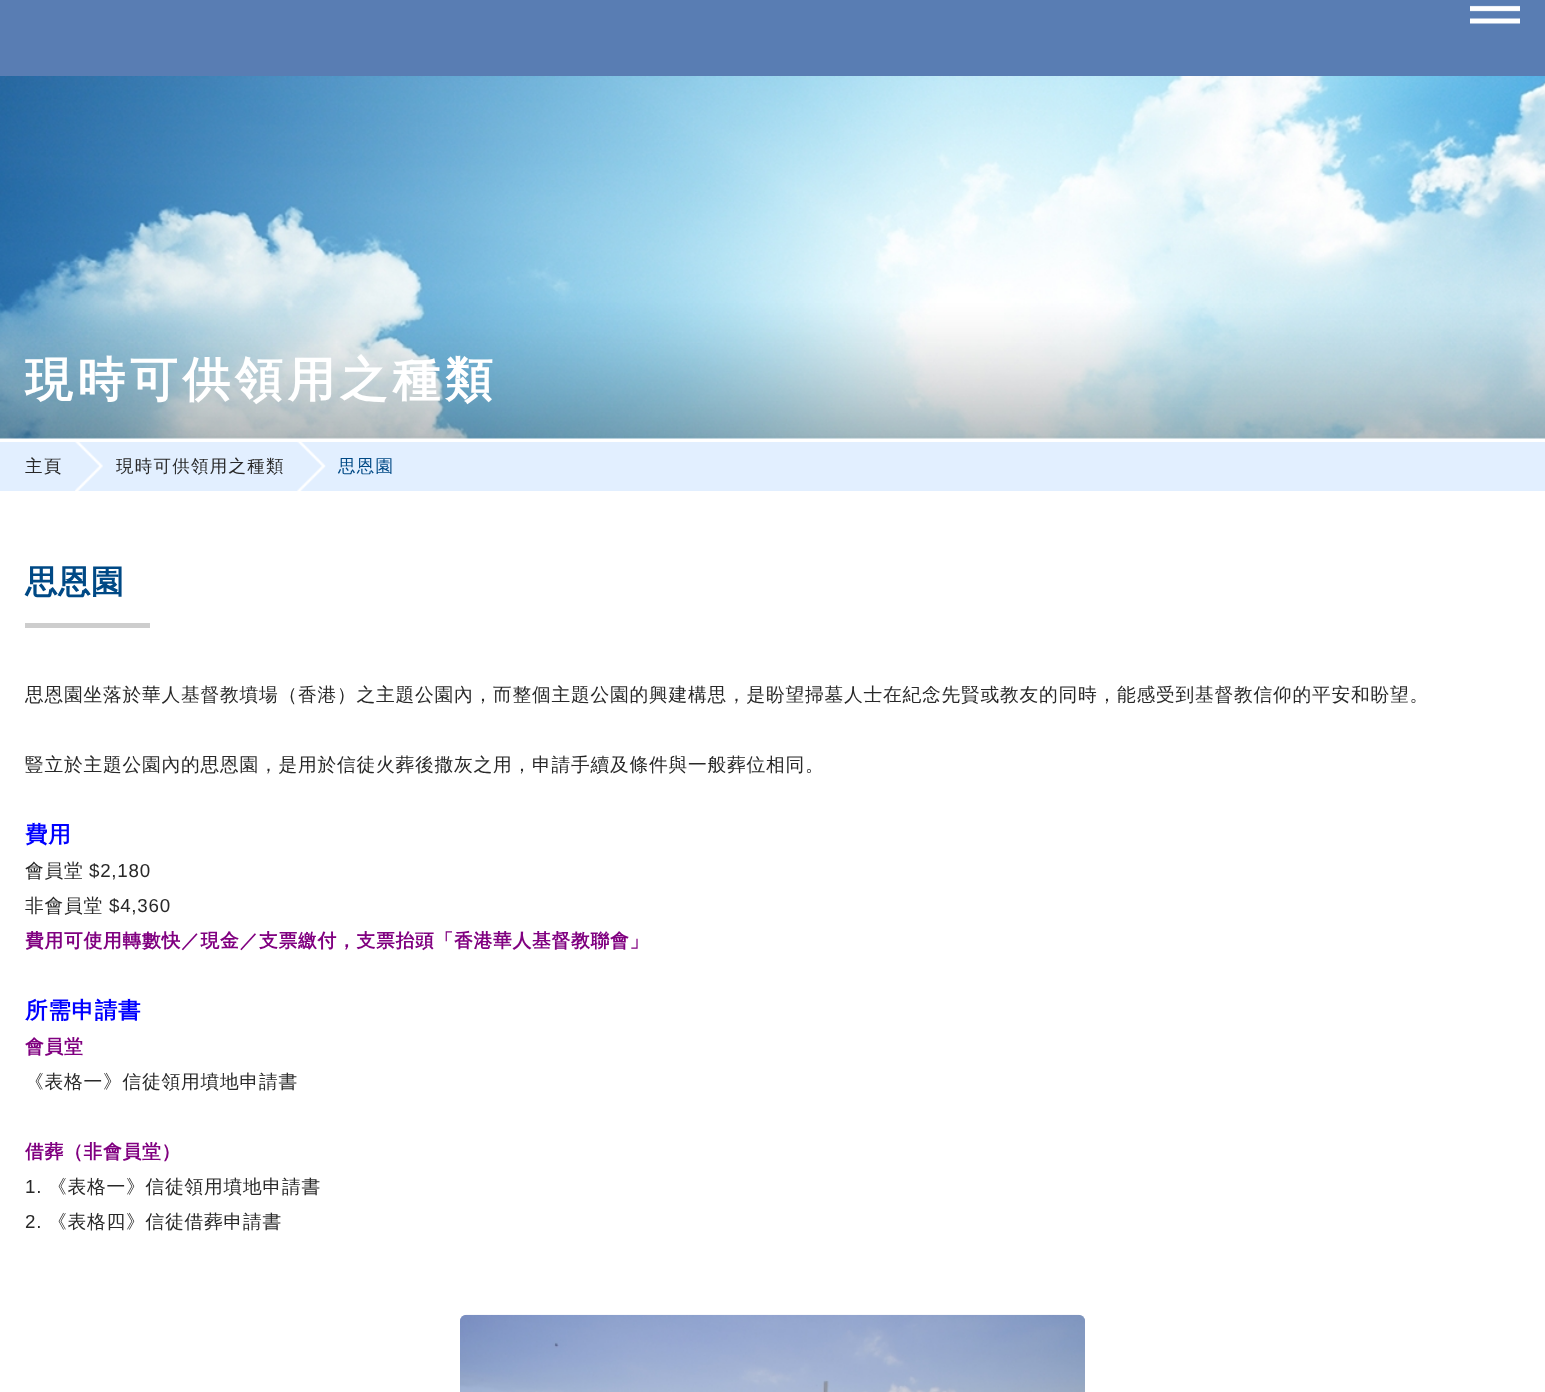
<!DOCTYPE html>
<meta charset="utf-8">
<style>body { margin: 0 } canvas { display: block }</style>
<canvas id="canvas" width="1545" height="1392"></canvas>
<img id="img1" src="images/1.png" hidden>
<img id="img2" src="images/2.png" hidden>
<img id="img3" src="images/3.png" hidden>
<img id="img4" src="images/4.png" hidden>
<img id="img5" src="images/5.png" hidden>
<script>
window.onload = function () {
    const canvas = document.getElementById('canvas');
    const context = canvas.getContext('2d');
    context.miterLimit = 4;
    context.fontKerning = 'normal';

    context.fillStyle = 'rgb(255, 255, 255)';
    context.fillRect(0, 0, 1545, 1392);
    context.fillStyle = 'rgb(89, 125, 179)';
    context.fillRect(0, 0, 1545, 76);
    context.drawImage(document.getElementById('img1'), 1470, 5, 50, 19);
    context.drawImage(document.getElementById('img2'), 0, 76, 1545, 363);
    context.fillStyle = 'rgb(226, 239, 255)';
    context.fillRect(0, 442, 1545, 49);
    context.drawImage(document.getElementById('img3'), 75, 442, 28, 49);
    context.drawImage(document.getElementById('img4'), 297, 442, 29, 49);
    context.fillStyle = 'rgb(205, 205, 205)';
    context.fillRect(25, 623, 125, 5);
    context.drawImage(document.getElementById('img5'), 460, 1314, 625, 78);
    context.letterSpacing = '5px';
    context.font = 'bold 47.5px WenQuanYi Zen Hei';
    context.fillStyle = 'rgb(255, 255, 255)';
    context.fillText('現時可供領用之種類', 25, 396);
    context.letterSpacing = '1.25px';
    context.font = '500 17.5px WenQuanYi Zen Hei';
    context.fillStyle = 'rgb(40, 40, 40)';
    context.fillText('主頁', 25, 472);
    context.fillText('現時可供領用之種類', 116, 472);
    context.fillStyle = 'rgb(0, 73, 133)';
    context.fillText('思恩園', 338, 472);
    context.letterSpacing = '0.5px';
    context.font = 'bold 32.5px WenQuanYi Zen Hei';
    context.fillText('思恩園', 25, 593);
    context.letterSpacing = '0.75px';
    context.font = '500 18.75px WenQuanYi Zen Hei';
    context.fillStyle = 'rgb(40, 40, 40)';
    context.fillText('思恩園坐落於華人基督教墳場（香港）之主題公園內，而整個主題公園的興建構思，是盼望掃墓人士在紀念先賢或教友的同時，能感受到基督教信仰的平安和盼望。', 25, 701);
    context.fillText('豎立於主題公園內的思恩園，是用於信徒火葬後撒灰之用，申請手續及條件與一般葬位相同。', 25, 771);
    context.font = 'bold 22.5px WenQuanYi Zen Hei';
    context.fillStyle = 'rgb(0, 0, 255)';
    context.fillText('費用', 25, 842);
    context.font = '500 18.75px WenQuanYi Zen Hei';
    context.fillStyle = 'rgb(40, 40, 40)';
    context.fillText('會員堂', 25, 877);
    context.font = '18.75px Liberation Sans';
    context.fillText('$2,180', 89, 877);
    context.font = '500 18.75px WenQuanYi Zen Hei';
    context.fillText('非會員堂', 25, 912);
    context.font = '18.75px Liberation Sans';
    context.fillText('$4,360', 109, 912);
    context.font = 'bold 18.75px WenQuanYi Zen Hei';
    context.fillStyle = 'rgb(128, 0, 128)';
    context.fillText('費用可使用轉數快／現金／支票繳付，支票抬頭「香港華人基督教聯會」', 25, 947);
    context.font = 'bold 22.5px WenQuanYi Zen Hei';
    context.fillStyle = 'rgb(0, 0, 255)';
    context.fillText('所需申請書', 25, 1018);
    context.font = 'bold 18.75px WenQuanYi Zen Hei';
    context.fillStyle = 'rgb(128, 0, 128)';
    context.fillText('會員堂', 25, 1053);
    context.font = '500 18.75px WenQuanYi Zen Hei';
    context.fillStyle = 'rgb(40, 40, 40)';
    context.fillText('《表格一》信徒領用墳地申請書', 25, 1088);
    context.font = 'bold 18.75px WenQuanYi Zen Hei';
    context.fillStyle = 'rgb(128, 0, 128)';
    context.fillText('借葬（非會員堂）', 25, 1158);
    context.font = '18.75px Liberation Sans';
    context.fillStyle = 'rgb(40, 40, 40)';
    context.fillText('1.', 25, 1193);
    context.font = '500 18.75px WenQuanYi Zen Hei';
    context.fillText('《表格一》信徒領用墳地申請書', 48, 1193);
    context.font = '18.75px Liberation Sans';
    context.fillText('2.', 25, 1228);
    context.font = '500 18.75px WenQuanYi Zen Hei';
    context.fillText('《表格四》信徒借葬申請書', 48, 1228);
};
</script>
